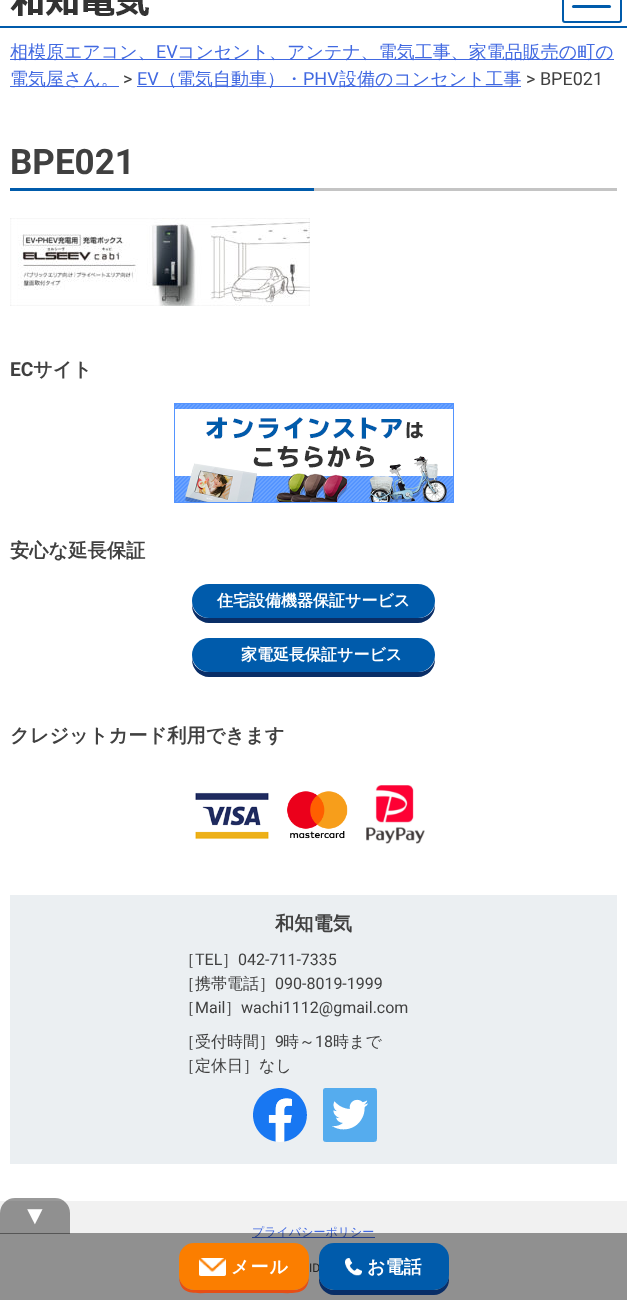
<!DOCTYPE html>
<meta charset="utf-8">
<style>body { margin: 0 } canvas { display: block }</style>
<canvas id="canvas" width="627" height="1300"></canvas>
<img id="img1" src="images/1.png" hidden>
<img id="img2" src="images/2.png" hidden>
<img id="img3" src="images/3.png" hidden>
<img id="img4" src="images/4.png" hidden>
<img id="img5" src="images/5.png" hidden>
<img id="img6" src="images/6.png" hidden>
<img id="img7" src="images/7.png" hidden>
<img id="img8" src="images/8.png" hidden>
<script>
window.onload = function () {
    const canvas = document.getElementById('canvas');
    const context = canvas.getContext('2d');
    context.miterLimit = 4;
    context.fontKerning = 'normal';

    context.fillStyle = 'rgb(255, 255, 255)';
    context.fillRect(0, 0, 627, 1300);
    context.fillStyle = 'rgb(0, 91, 171)';
    context.fillRect(0, 26, 627, 2);
    context.drawImage(document.getElementById('img1'), 10, 0, 139, 16);
    context.beginPath();
    context.roundRect(563, -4, 58, 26, 2);
    context.strokeStyle = 'rgb(0, 91, 171)';
    context.lineWidth = 2;
    context.stroke();
    context.beginPath();
    context.roundRect(572, 5, 39, 3, 1.5);
    context.fill();
    context.fillStyle = 'rgb(65, 105, 225)';
    context.fillRect(10, 59, 604, 1);
    context.fillRect(10, 86, 109, 1);
    context.fillRect(137, 86, 384, 1);
    context.fillStyle = 'rgb(196, 196, 196)';
    context.fillRect(314, 188, 303, 3);
    context.fillStyle = 'rgb(0, 91, 171)';
    context.fillRect(10, 188, 304, 3);
    context.drawImage(document.getElementById('img2'), 10, 218, 300, 88);
    context.drawImage(document.getElementById('img3'), 174, 403, 280, 100);
    context.fillStyle = 'rgb(9, 46, 103)';
    context.beginPath();
    context.moveTo(192, 604);
    context.lineTo(192, 606);
    context.bezierCurveTo(192, 615, 200, 623, 209, 623);
    context.lineTo(418, 623);
    context.bezierCurveTo(427, 623, 435, 615, 435, 606);
    context.lineTo(435, 604);
    context.bezierCurveTo(434, 612, 427, 618, 418, 618);
    context.lineTo(209, 618);
    context.bezierCurveTo(200, 618, 193, 612, 192, 604);
    context.closePath();
    context.fill();
    context.fillStyle = 'rgb(0, 91, 171)';
    context.beginPath();
    context.roundRect(192, 584, 243, 34, 17);
    context.fill();
    context.fillStyle = 'rgb(9, 46, 103)';
    context.beginPath();
    context.moveTo(192, 658);
    context.lineTo(192, 660);
    context.bezierCurveTo(192, 669, 200, 677, 209, 677);
    context.lineTo(418, 677);
    context.bezierCurveTo(427, 677, 435, 669, 435, 660);
    context.lineTo(435, 658);
    context.bezierCurveTo(434, 666, 427, 672, 418, 672);
    context.lineTo(209, 672);
    context.bezierCurveTo(200, 672, 193, 666, 192, 658);
    context.closePath();
    context.fill();
    context.fillStyle = 'rgb(0, 91, 171)';
    context.beginPath();
    context.roundRect(192, 638, 243, 34, 17);
    context.fill();
    context.drawImage(document.getElementById('img4'), 195, 785, 230, 59);
    context.fillStyle = 'rgb(235, 239, 242)';
    context.fillRect(10, 895, 607, 269);
    context.drawImage(document.getElementById('img5'), 253, 1088, 54, 54);
    context.drawImage(document.getElementById('img6'), 323, 1088, 54, 54);
    context.fillStyle = 'rgb(241, 241, 241)';
    context.fillRect(0, 1201, 627, 99);
    context.fillStyle = 'rgb(65, 105, 225)';
    context.fillRect(252, 1237, 123, 1);
    context.font = '500 18px WenQuanYi Zen Hei';
    context.fillText('相模原エアコン、', 10, 58);
    context.font = '18px Roboto';
    context.fillText('EV', 156, 58);
    context.font = '500 18px WenQuanYi Zen Hei';
    context.fillText('コンセント、アンテナ、電気工事、家電品販売の町の', 177, 58);
    context.fillText('電気屋さん。', 10, 85);
    context.font = '18px Roboto';
    context.fillStyle = 'rgb(64, 64, 64)';
    context.fillText('>', 123, 85);
    context.fillStyle = 'rgb(65, 105, 225)';
    context.fillText('EV', 137, 85);
    context.font = '500 18px WenQuanYi Zen Hei';
    context.fillText('（電気自動車）・', 159, 85);
    context.font = '18px Roboto';
    context.fillText('PHV', 303, 85);
    context.font = '500 18px WenQuanYi Zen Hei';
    context.fillText('設備のコンセント工事', 339, 85);
    context.font = '18px Roboto';
    context.fillStyle = 'rgb(64, 64, 64)';
    context.fillText('> BPE021', 526, 85);
    context.font = 'bold 35px Roboto';
    context.fillText('BPE021', 10, 174);
    context.font = 'bold 19.25px Roboto';
    context.fillText('EC', 10, 376);
    context.font = 'bold 19.25px WenQuanYi Zen Hei';
    context.fillText('サイト', 33, 376);
    context.fillText('安心な延長保証', 10, 557);
    context.font = 'bold 16px WenQuanYi Zen Hei';
    context.fillStyle = 'rgb(255, 255, 255)';
    context.fillText('住宅設備機器保証サービス', 217, 606);
    context.fillText('家電延長保証サービス', 241, 660);
    context.font = 'bold 19.25px WenQuanYi Zen Hei';
    context.fillStyle = 'rgb(64, 64, 64)';
    context.fillText('クレジットカード利用できます', 10, 742);
    context.fillText('和知電気', 275, 930);
    context.font = '500 16px WenQuanYi Zen Hei';
    context.fillText('［', 179, 965);
    context.font = '16px Roboto';
    context.fillText('TEL', 195, 965);
    context.font = '500 16px WenQuanYi Zen Hei';
    context.fillText('］', 222, 965);
    context.font = '16px Roboto';
    context.fillText('042-711-7335', 238, 965);
    context.font = '500 16px WenQuanYi Zen Hei';
    context.fillText('［携帯電話］', 179, 989);
    context.font = '16px Roboto';
    context.fillText('090-8019-1999', 275, 989);
    context.font = '500 16px WenQuanYi Zen Hei';
    context.fillText('［', 179, 1013);
    context.font = '16px Roboto';
    context.fillText('Mail', 195, 1013);
    context.font = '500 16px WenQuanYi Zen Hei';
    context.fillText('］', 225, 1013);
    context.font = '16px Roboto';
    context.fillText('wachi1112@gmail.com', 241, 1013);
    context.font = '500 16px WenQuanYi Zen Hei';
    context.fillText('［受付時間］', 179, 1047);
    context.font = '16px Roboto';
    context.fillText('9', 275, 1047);
    context.font = '500 16px WenQuanYi Zen Hei';
    context.fillText('時～', 283, 1047);
    context.font = '16px Roboto';
    context.fillText('18', 315, 1047);
    context.font = '500 16px WenQuanYi Zen Hei';
    context.fillText('時まで', 333, 1047);
    context.fillText('［定休日］なし', 179, 1071);
    context.font = '500 12px WenQuanYi Zen Hei';
    context.fillStyle = 'rgb(65, 105, 225)';
    context.fillText('プライバシーポリシー', 252, 1236);
    context.font = '12px Roboto';
    context.fillStyle = 'rgb(64, 64, 64)';
    context.fillText('ID', 309, 1272);
    context.fillStyle = 'rgba(0, 0, 0, 0.4)';
    context.fillRect(0, 1233, 627, 67);
    context.beginPath();
    context.roundRect(0, 1198, 70, 36, [15, 15, 0, 0]);
    context.fill();
    context.font = '26px Liberation Sans';
    context.fillStyle = 'rgb(255, 255, 255)';
    context.fillText('▼', 22, 1224);
    context.fillStyle = 'rgb(230, 78, 21)';
    context.beginPath();
    context.moveTo(179, 1275);
    context.bezierCurveTo(179, 1296, 194, 1293, 211, 1293);
    context.lineTo(277, 1293);
    context.bezierCurveTo(294, 1293, 309, 1296, 309, 1275);
    context.bezierCurveTo(309, 1283, 302, 1290, 294, 1290);
    context.lineTo(194, 1290);
    context.bezierCurveTo(186, 1290, 179, 1283, 179, 1275);
    context.closePath();
    context.fill();
    context.fillStyle = 'rgb(251, 126, 0)';
    context.beginPath();
    context.roundRect(179, 1243, 130, 47, 15);
    context.fill();
    context.drawImage(document.getElementById('img7'), 199, 1258, 27, 18);
    context.letterSpacing = '1px';
    context.font = 'bold 18px WenQuanYi Zen Hei';
    context.fillStyle = 'rgb(255, 255, 255)';
    context.fillText('メール', 231, 1273);
    context.fillStyle = 'rgb(9, 46, 103)';
    context.beginPath();
    context.moveTo(319, 1275);
    context.lineTo(319, 1280);
    context.bezierCurveTo(319, 1288, 326, 1295, 334, 1295);
    context.lineTo(434, 1295);
    context.bezierCurveTo(442, 1295, 449, 1288, 449, 1280);
    context.lineTo(449, 1275);
    context.bezierCurveTo(449, 1283, 442, 1290, 434, 1290);
    context.lineTo(334, 1290);
    context.bezierCurveTo(326, 1290, 319, 1283, 319, 1275);
    context.closePath();
    context.fill();
    context.fillStyle = 'rgb(0, 91, 171)';
    context.beginPath();
    context.roundRect(319, 1243, 130, 47, 15);
    context.fill();
    context.drawImage(document.getElementById('img8'), 345, 1258, 17, 18);
    context.letterSpacing = '0px';
    context.fillStyle = 'rgb(255, 255, 255)';
    context.fillText('お電話', 367, 1273);
};
</script>
